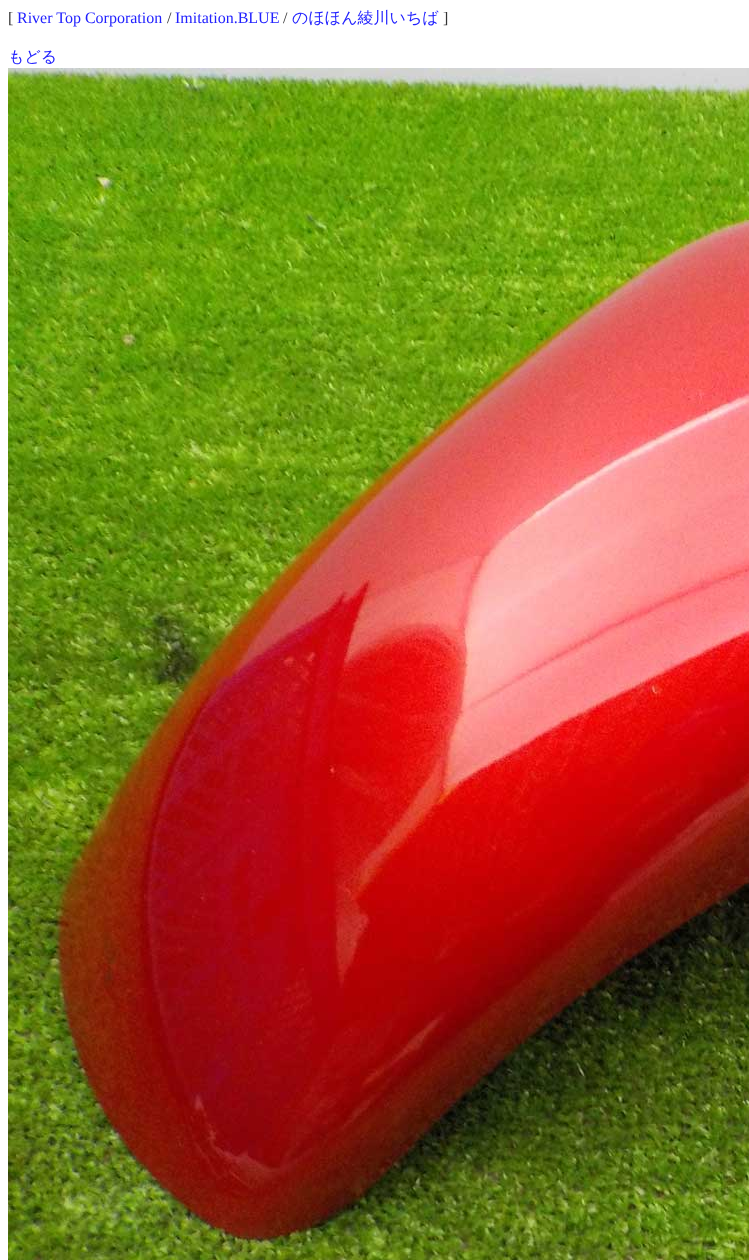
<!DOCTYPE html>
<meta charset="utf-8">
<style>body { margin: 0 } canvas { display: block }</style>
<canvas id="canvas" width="749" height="1260"></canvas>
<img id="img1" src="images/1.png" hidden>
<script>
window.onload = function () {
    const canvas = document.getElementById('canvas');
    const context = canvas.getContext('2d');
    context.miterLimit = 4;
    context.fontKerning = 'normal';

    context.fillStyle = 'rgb(255, 255, 255)';
    context.fillRect(0, 0, 749, 1260);
    context.drawImage(document.getElementById('img1'), 8, 68, 741, 1192);
    context.font = '16px Liberation Serif';
    context.fillStyle = 'rgb(51, 51, 51)';
    context.fillText('[', 8, 23);
    context.fillStyle = 'rgb(34, 34, 255)';
    context.fillText('River Top Corporation', 17, 23);
    context.fillStyle = 'rgb(51, 51, 51)';
    context.fillText('/', 167, 23);
    context.fillStyle = 'rgb(34, 34, 255)';
    context.fillText('Imitation.BLUE', 175, 23);
    context.fillStyle = 'rgb(51, 51, 51)';
    context.fillText('/', 283, 23);
    context.font = '500 16px WenQuanYi Zen Hei';
    context.fillStyle = 'rgb(34, 34, 255)';
    context.fillText('のほほん綾川いちば', 292, 23);
    context.font = '16px Liberation Serif';
    context.fillStyle = 'rgb(51, 51, 51)';
    context.fillText(']', 443, 23);
    context.font = '500 16px WenQuanYi Zen Hei';
    context.fillStyle = 'rgb(34, 34, 255)';
    context.fillText('もどる', 8, 62);
};
</script>
